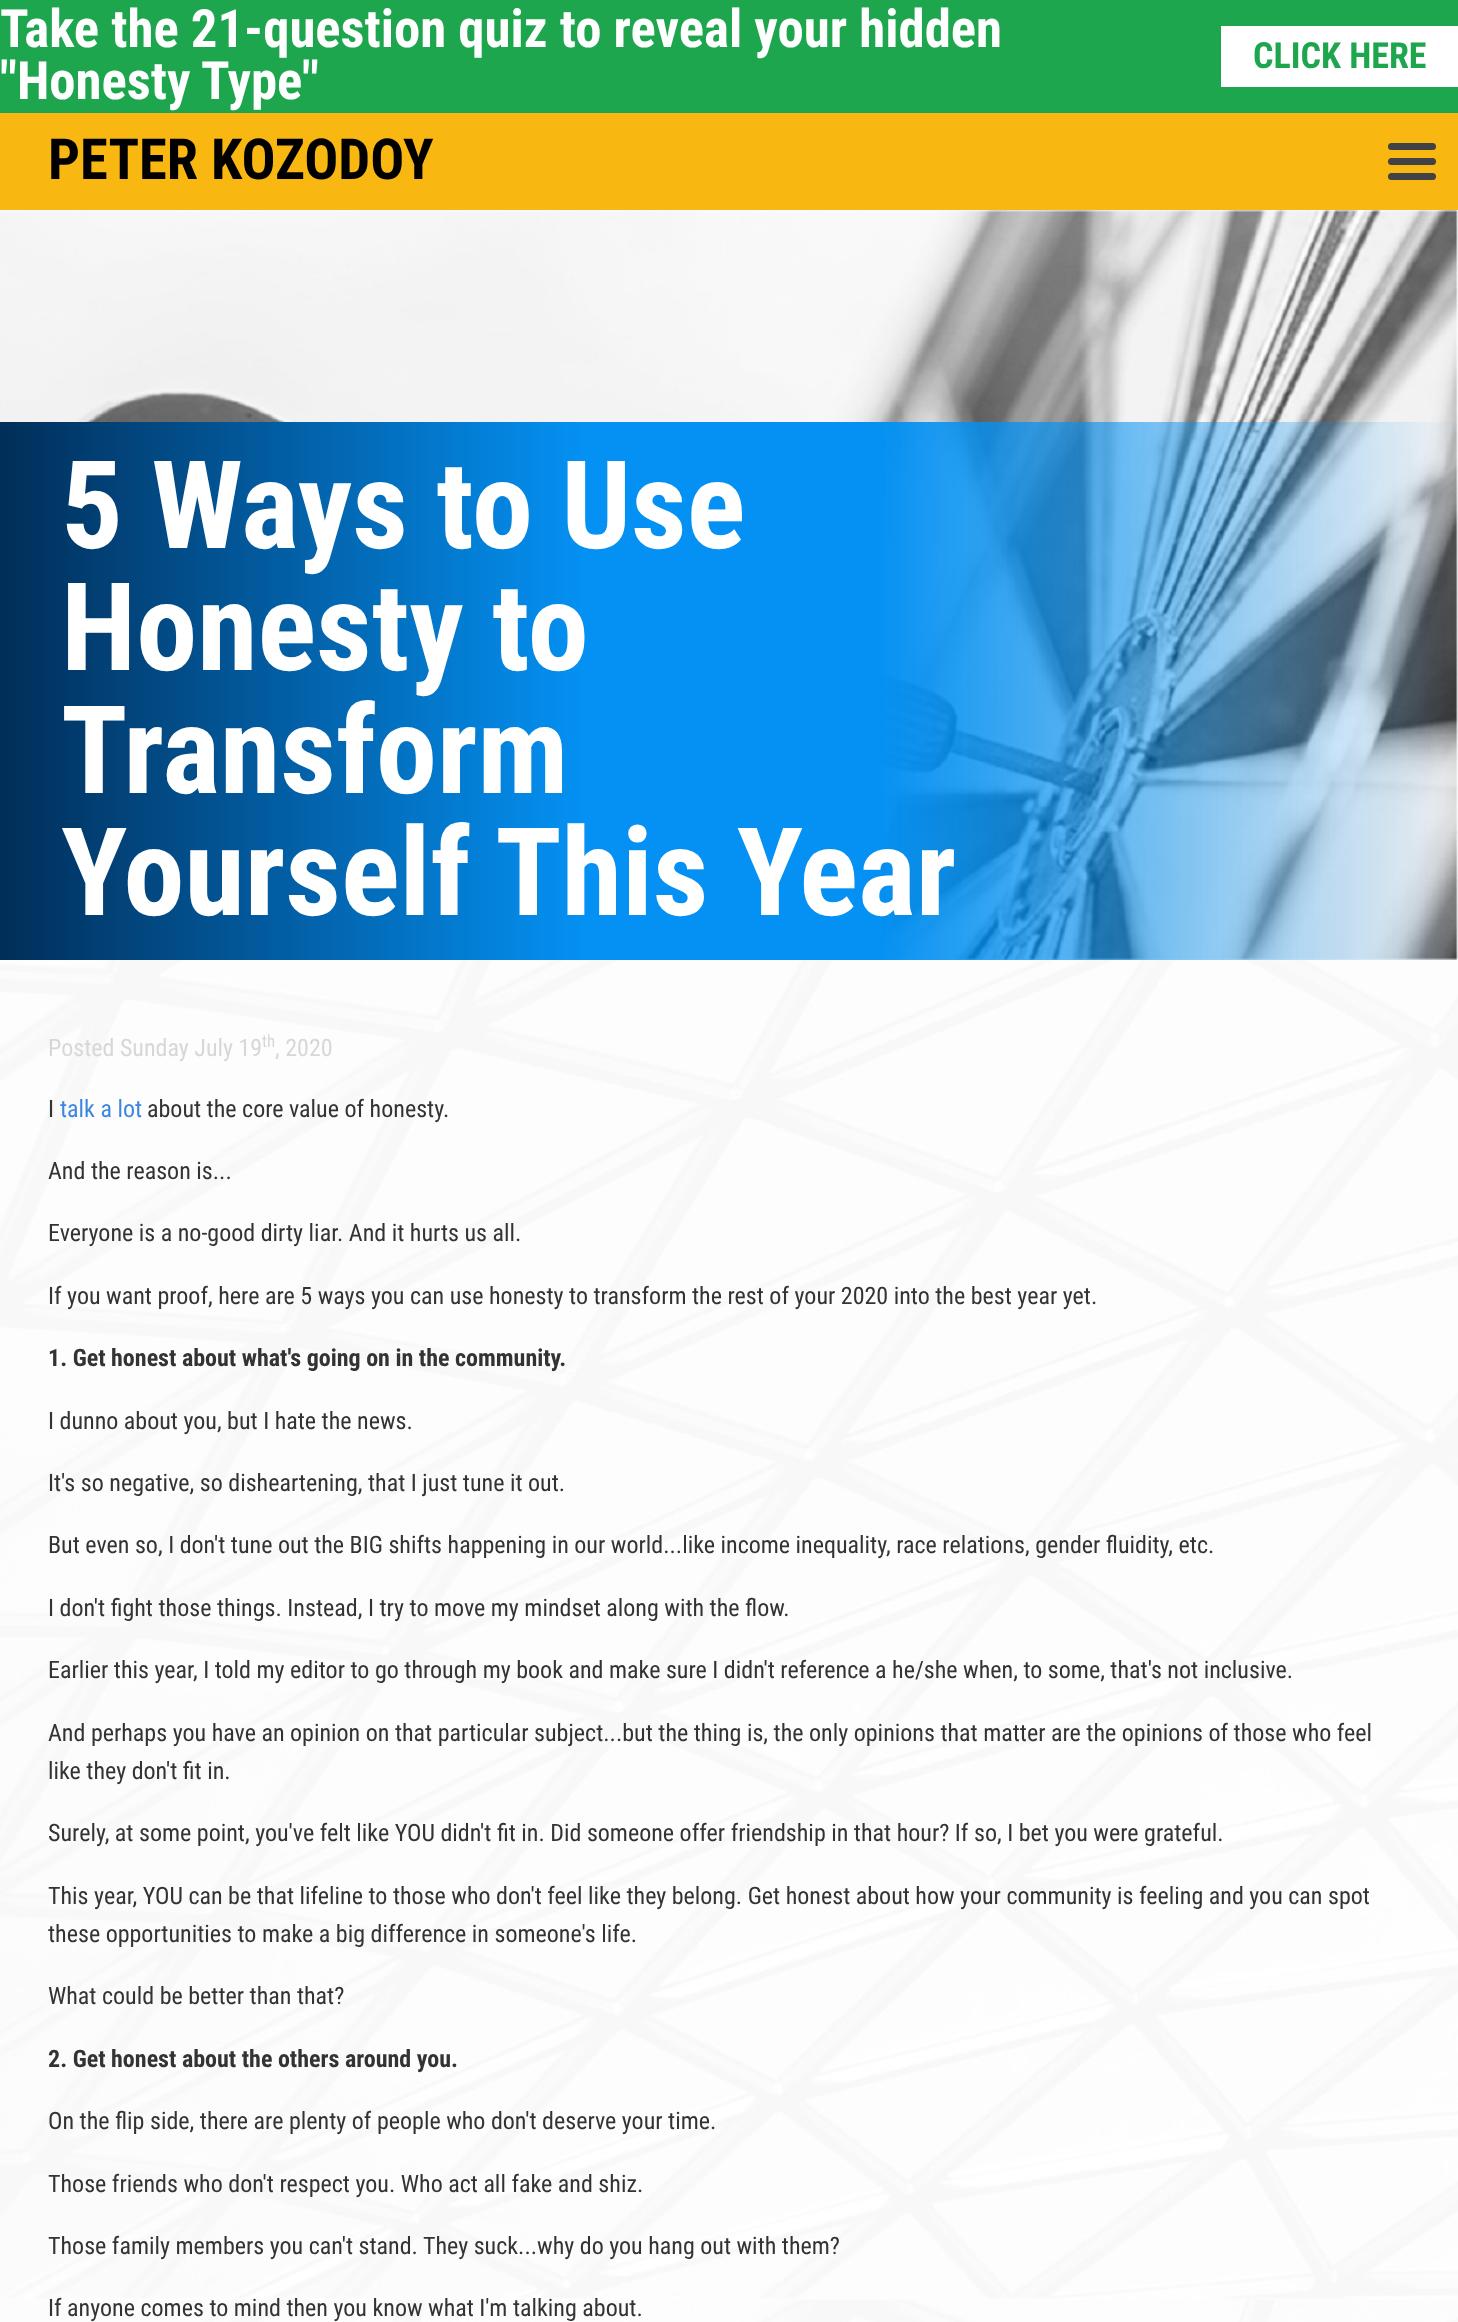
<!DOCTYPE html>
<meta charset="utf-8">
<style>body { margin: 0 } canvas { display: block }</style>
<canvas id="canvas" width="1458" height="2322"></canvas>
<img id="img1" src="images/1.png" hidden>
<img id="img2" src="images/2.png" hidden>
<script>
window.onload = function () {
    const canvas = document.getElementById('canvas');
    const context = canvas.getContext('2d');
    context.miterLimit = 4;
    context.fontKerning = 'normal';

    context.fillStyle = 'rgb(255, 255, 255)';
    context.fillRect(0, 0, 1458, 2322);
    context.drawImage(document.getElementById('img1'), 0, 960, 1458, 1362);
    context.fillStyle = 'rgb(29, 166, 77)';
    context.fillRect(0, 0, 1458, 113);
    context.fillStyle = 'rgb(255, 255, 255)';
    context.fillRect(1221, 26, 237, 61);
    context.fillStyle = 'rgb(248, 183, 17)';
    context.fillRect(0, 113, 1458, 97);
    context.fillStyle = 'rgb(66, 65, 67)';
    context.beginPath();
    context.roundRect(1388, 158, 48, 7, 3.5);
    context.fill();
    context.beginPath();
    context.roundRect(1388, 143, 48, 7, 3.5);
    context.fill();
    context.beginPath();
    context.roundRect(1388, 173, 48, 7, 3.5);
    context.fill();
    context.drawImage(document.getElementById('img2'), 0, 210, 1458, 750);
    context.font = 'bold 52.75px Roboto Condensed';
    context.fillStyle = 'rgb(255, 255, 255)';
    context.fillText('Take the 21-question quiz to reveal your hidden', 0, 47);
    context.fillText('"Honesty Type"', 0, 99);
    context.font = 'bold 36px Roboto Condensed';
    context.fillStyle = 'rgb(29, 166, 77)';
    context.fillText('CLICK HERE', 1253, 68);
    context.font = 'bold 56.5px Roboto Condensed';
    context.fillStyle = 'rgb(0, 0, 0)';
    context.fillText('PETER KOZODOY', 48, 179);
    context.font = 'bold 122.5px Roboto Condensed';
    context.fillStyle = 'rgb(255, 255, 255)';
    context.fillText('5 Ways to Use', 61, 548);
    context.fillText('Honesty to', 61, 670);
    context.fillText('Transform', 61, 793);
    context.fillText('Yourself This Year', 61, 915);
    context.font = '24px Roboto Condensed';
    context.fillStyle = 'rgb(215, 215, 215)';
    context.fillText('Posted Sunday July 19', 48, 1056);
    context.font = '17px Roboto Condensed';
    context.fillText('th', 262, 1047);
    context.font = '24px Roboto Condensed';
    context.fillText(', 2020', 275, 1056);
    context.fillStyle = 'rgb(51, 51, 51)';
    context.fillText('I', 48, 1117);
    context.fillStyle = 'rgb(61, 134, 224)';
    context.fillText('talk a lot', 60, 1117);
    context.fillStyle = 'rgb(51, 51, 51)';
    context.fillText('about the core value of honesty.', 147, 1117);
    context.fillText('And the reason is...', 48, 1179);
    context.fillText('Everyone is a no-good dirty liar. And it hurts us all.', 48, 1241);
    context.fillText('If you want proof, here are 5 ways you can use honesty to transform the rest of your 2020 into the best year yet.', 48, 1304);
    context.font = 'bold 24px Roboto Condensed';
    context.fillText('1. Get honest about what\'s going on in the community.', 48, 1366);
    context.font = '24px Roboto Condensed';
    context.fillText('I dunno about you, but I hate the news.', 48, 1429);
    context.fillText('It\'s so negative, so disheartening, that I just tune it out.', 48, 1491);
    context.fillText('But even so, I don\'t tune out the BIG shifts happening in our world...like income inequality, race relations, gender fluidity, etc.', 48, 1553);
    context.fillText('I don\'t fight those things. Instead, I try to move my mindset along with the flow.', 48, 1616);
    context.fillText('Earlier this year, I told my editor to go through my book and make sure I didn\'t reference a he/she when, to some, that\'s not inclusive.', 48, 1678);
    context.fillText('And perhaps you have an opinion on that particular subject...but the thing is, the only opinions that matter are the opinions of those who feel', 48, 1741);
    context.fillText('like they don\'t fit in.', 48, 1779);
    context.fillText('Surely, at some point, you\'ve felt like YOU didn\'t fit in. Did someone offer friendship in that hour? If so, I bet you were grateful.', 48, 1841);
    context.fillText('This year, YOU can be that lifeline to those who don\'t feel like they belong. Get honest about how your community is feeling and you can spot', 48, 1904);
    context.fillText('these opportunities to make a big difference in someone\'s life.', 48, 1942);
    context.fillText('What could be better than that?', 48, 2004);
    context.font = 'bold 24px Roboto Condensed';
    context.fillText('2. Get honest about the others around you.', 48, 2067);
    context.font = '24px Roboto Condensed';
    context.fillText('On the flip side, there are plenty of people who don\'t deserve your time.', 48, 2129);
    context.fillText('Those friends who don\'t respect you. Who act all fake and shiz.', 48, 2192);
    context.fillText('Those family members you can\'t stand. They suck...why do you hang out with them?', 48, 2254);
    context.fillText('If anyone comes to mind then you know what I\'m talking about.', 48, 2316);
};
</script>
